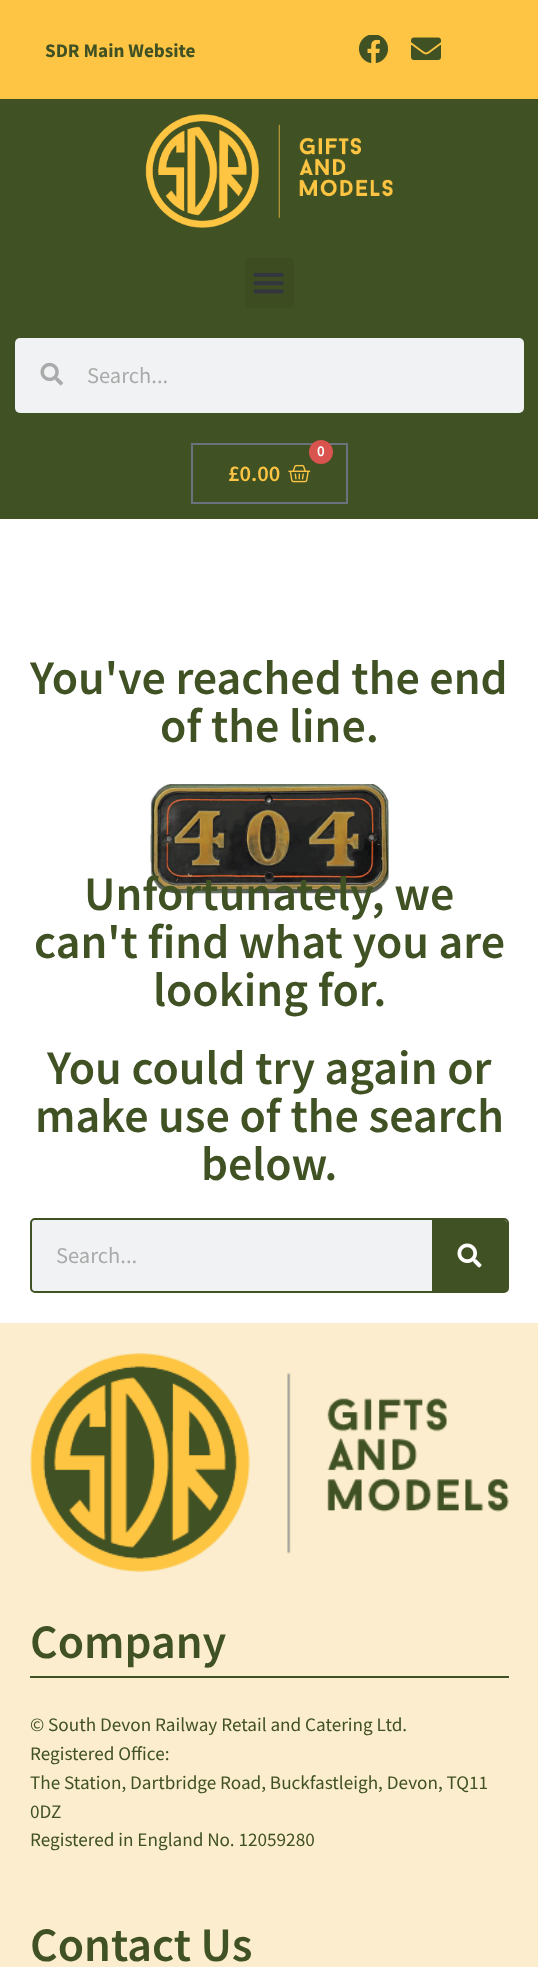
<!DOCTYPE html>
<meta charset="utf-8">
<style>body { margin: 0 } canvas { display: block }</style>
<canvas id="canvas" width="538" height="1967"></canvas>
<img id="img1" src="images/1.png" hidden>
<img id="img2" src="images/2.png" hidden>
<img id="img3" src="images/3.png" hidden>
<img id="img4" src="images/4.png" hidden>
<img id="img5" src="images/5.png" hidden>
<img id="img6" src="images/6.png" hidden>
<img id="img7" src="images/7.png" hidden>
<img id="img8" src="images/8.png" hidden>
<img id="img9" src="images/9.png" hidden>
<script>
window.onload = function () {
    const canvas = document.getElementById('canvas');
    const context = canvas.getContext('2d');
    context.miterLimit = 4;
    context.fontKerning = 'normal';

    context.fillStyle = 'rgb(255, 255, 255)';
    context.fillRect(0, 0, 538, 1967);
    context.fillStyle = 'rgb(253, 197, 67)';
    context.fillRect(0, 0, 538, 99);
    context.drawImage(document.getElementById('img1'), 359, 35, 29, 28);
    context.drawImage(document.getElementById('img2'), 411, 37, 30, 23);
    context.fillStyle = 'rgb(64, 81, 35)';
    context.fillRect(0, 99, 538, 420);
    context.drawImage(document.getElementById('img3'), 145, 114, 248, 114);
    context.fillStyle = 'rgb(61, 77, 33)';
    context.beginPath();
    context.roundRect(245, 258, 49, 50, 5);
    context.fill();
    context.drawImage(document.getElementById('img4'), 253, 272, 31, 22);
    context.fillStyle = 'rgb(241, 242, 243)';
    context.beginPath();
    context.roundRect(15, 338, 509, 75, 5);
    context.fill();
    context.drawImage(document.getElementById('img5'), 40, 362, 23, 24);
    context.strokeStyle = 'rgb(105, 114, 125)';
    context.lineWidth = 2;
    context.strokeRect(192, 444, 155, 59);
    context.fillStyle = 'rgb(217, 83, 79)';
    context.beginPath();
    context.arc(321, 452, 12, 0, 2 * Math.PI);
    context.fill();
    context.drawImage(document.getElementById('img6'), 288, 464, 23, 19);
    context.drawImage(document.getElementById('img7'), 150, 784, 239, 110);
    context.fillStyle = 'rgb(241, 242, 243)';
    context.beginPath();
    context.roundRect(31, 1219, 477, 73, 4);
    context.fill();
    context.strokeStyle = 'rgb(64, 81, 35)';
    context.stroke();
    context.fillStyle = 'rgb(64, 81, 35)';
    context.beginPath();
    context.roundRect(432, 1220, 75, 72, [0, 3, 3, 0]);
    context.fill();
    context.drawImage(document.getElementById('img8'), 457, 1243, 25, 25);
    context.fillStyle = 'rgb(251, 237, 205)';
    context.fillRect(0, 1323, 538, 644);
    context.drawImage(document.getElementById('img9'), 30, 1353, 479, 219);
    context.fillStyle = 'rgb(64, 81, 35)';
    context.fillRect(30, 1676, 479, 2);
    context.font = 'bold 19.2px Source Sans Pro';
    context.fillText('SDR Main Website', 45, 57);
    context.font = '22.5px Source Sans Pro';
    context.fillStyle = 'rgb(170, 170, 170)';
    context.fillText('Search...', 87, 383);
    context.font = '600 15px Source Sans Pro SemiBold';
    context.fillStyle = 'rgb(255, 255, 255)';
    context.fillText('0', 317, 456);
    context.font = '600 22.5px Source Sans Pro SemiBold';
    context.fillStyle = 'rgb(253, 197, 67)';
    context.fillText('£0.00', 228, 481);
    context.font = '600 48px Source Sans Pro SemiBold';
    context.fillStyle = 'rgb(64, 81, 35)';
    context.fillText('You\'ve reached the end', 30, 694);
    context.fillText('of the line.', 160, 742);
    context.fillText('Unfortunately, we', 84, 910);
    context.fillText('can\'t find what you are', 34, 958);
    context.fillText('looking for.', 153, 1006);
    context.fillText('You could try again or', 47, 1084);
    context.fillText('make use of the search', 35, 1132);
    context.fillText('below.', 201, 1180);
    context.font = '22.5px Source Sans Pro';
    context.fillStyle = 'rgb(170, 170, 170)';
    context.fillText('Search...', 56, 1263);
    context.font = '600 48px Source Sans Pro SemiBold';
    context.fillStyle = 'rgb(64, 81, 35)';
    context.fillText('Company', 30, 1658);
    context.font = '19.2px Source Sans Pro';
    context.fillText('© South Devon Railway Retail and Catering Ltd.', 30, 1731);
    context.fillText('Registered Office:', 30, 1760);
    context.fillText('The Station, Dartbridge Road, Buckfastleigh, Devon, TQ11', 30, 1789);
    context.fillText('0DZ', 30, 1818);
    context.fillText('Registered in England No. 12059280', 30, 1846);
    context.font = '600 48px Source Sans Pro SemiBold';
    context.fillText('Contact Us', 30, 1961);
};
</script>
